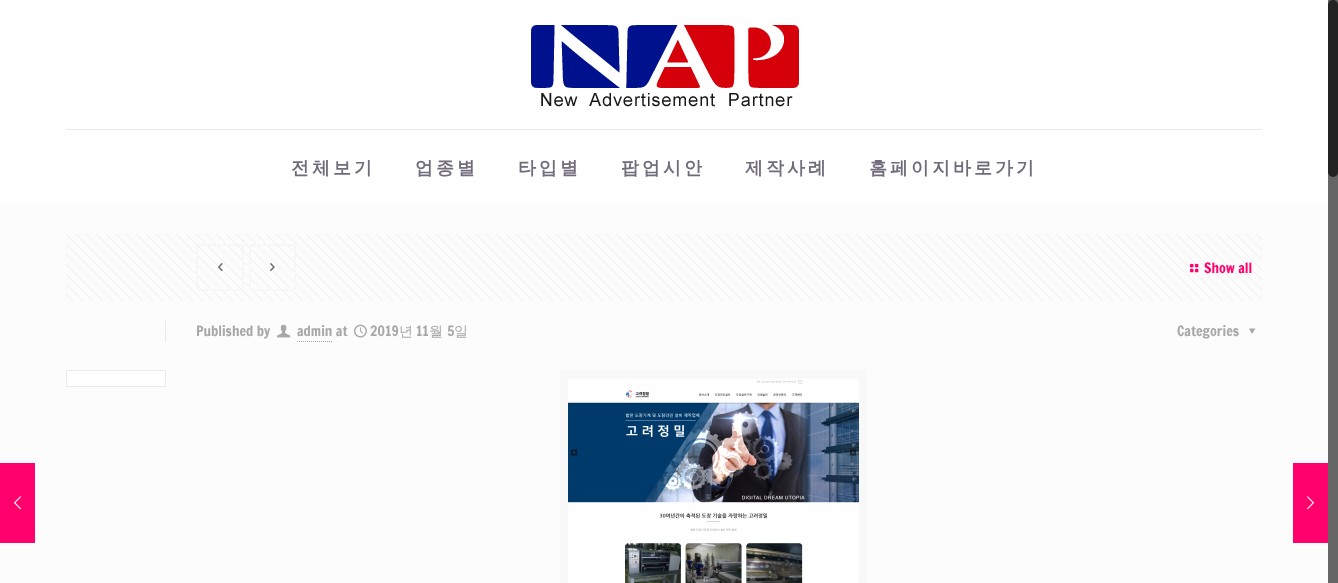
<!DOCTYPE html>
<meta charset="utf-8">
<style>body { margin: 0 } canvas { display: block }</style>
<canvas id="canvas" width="1338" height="583"></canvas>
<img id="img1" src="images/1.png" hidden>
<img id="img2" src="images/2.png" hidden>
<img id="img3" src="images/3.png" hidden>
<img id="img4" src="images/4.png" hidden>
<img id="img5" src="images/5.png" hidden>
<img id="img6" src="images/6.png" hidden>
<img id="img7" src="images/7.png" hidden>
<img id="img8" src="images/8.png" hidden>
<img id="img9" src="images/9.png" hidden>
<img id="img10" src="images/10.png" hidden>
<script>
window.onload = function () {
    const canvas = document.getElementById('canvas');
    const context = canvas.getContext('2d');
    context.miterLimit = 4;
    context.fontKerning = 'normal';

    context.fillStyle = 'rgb(252, 252, 252)';
    context.fillRect(0, 0, 1338, 583);
    context.fillStyle = 'rgb(255, 255, 255)';
    context.fillRect(0, 0, 1328, 204);
    context.fillStyle = 'rgb(235, 235, 235)';
    context.fillRect(66, 129, 1196, 1);
    context.drawImage(document.getElementById('img1'), 531, 25, 268, 82);
    context.drawImage(document.getElementById('img2'), 66, 234, 1196, 67);
    context.beginPath();
    context.roundRect(197, 245, 46, 45, 2);
    context.strokeStyle = 'rgb(247, 247, 247)';
    context.lineWidth = 2;
    context.stroke();
    context.drawImage(document.getElementById('img3'), 218, 263, 5, 9);
    context.beginPath();
    context.roundRect(250, 245, 45, 45, 2);
    context.stroke();
    context.drawImage(document.getElementById('img4'), 270, 263, 5, 9);
    context.drawImage(document.getElementById('img5'), 1190, 263, 9, 10);
    context.fillStyle = 'rgb(232, 232, 232)';
    context.fillRect(165, 321, 1, 21);
    context.drawImage(document.getElementById('img6'), 277, 324, 14, 14);
    context.beginPath();
    context.moveTo(297, 341.5);
    context.lineTo(332, 341.5);
    context.strokeStyle = 'rgb(168, 168, 168)';
    context.lineWidth = 1;
    context.setLineDash([1, 1]);
    context.stroke();
    context.drawImage(document.getElementById('img7'), 354, 324, 13, 14);
    context.fillStyle = 'rgb(168, 168, 168)';
    context.beginPath();
    context.moveTo(1255.5, 328.5);
    context.lineTo(1252, 334);
    context.lineTo(1249, 328.5);
    context.closePath();
    context.fill();
    context.fillStyle = 'rgb(255, 255, 255)';
    context.beginPath();
    context.rect(66.5, 370.5, 99, 16);
    context.fill();
    context.strokeStyle = 'rgb(235, 235, 235)';
    context.setLineDash([]);
    context.stroke();
    context.strokeStyle = 'rgb(248, 248, 248)';
    context.lineWidth = 8;
    context.strokeRect(564, 374, 299, 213);
    context.drawImage(document.getElementById('img8'), 568, 380, 291, 203);
    context.fillStyle = 'rgb(102, 102, 102)';
    context.fillRect(1328, 0, 10, 583);
    context.fillStyle = 'rgb(34, 34, 34)';
    context.beginPath();
    context.roundRect(1328, 0, 10, 177, 5);
    context.fill();
    context.fillStyle = 'rgb(255, 0, 108)';
    context.fillRect(0, 463, 35, 80);
    context.drawImage(document.getElementById('img9'), 14, 496, 7, 14);
    context.fillRect(1293, 463, 35, 80);
    context.drawImage(document.getElementById('img10'), 1307, 496, 7, 14);
    context.letterSpacing = '3px';
    context.font = 'bold 18px WenQuanYi Zen Hei';
    context.fillStyle = 'rgb(113, 108, 123)';
    context.fillText('전체보기', 291, 174);
    context.fillText('업종별', 415, 174);
    context.fillText('타입별', 518, 174);
    context.fillText('팝업시안', 621, 174);
    context.fillText('제작사례', 745, 174);
    context.fillText('홈페이지바로가기', 869, 174);
    context.letterSpacing = '0px';
    context.font = '14px Francois One';
    context.fillStyle = 'rgb(255, 0, 108)';
    context.fillText('Show all', 1204, 273);
    context.fillStyle = 'rgb(168, 168, 168)';
    context.fillText('Published by', 196, 336);
    context.fillText('admin at', 297, 336);
    context.fillText('2019', 370, 336);
    context.font = '500 14px WenQuanYi Zen Hei';
    context.fillText('년', 399, 336);
    context.font = '14px Francois One';
    context.fillText('11', 416, 336);
    context.font = '500 14px WenQuanYi Zen Hei';
    context.fillText('월', 429, 336);
    context.font = '14px Francois One';
    context.fillText('5', 447, 336);
    context.font = '500 14px WenQuanYi Zen Hei';
    context.fillText('일', 454, 336);
    context.font = '14px Francois One';
    context.fillText('Categories', 1177, 336);
};
</script>
